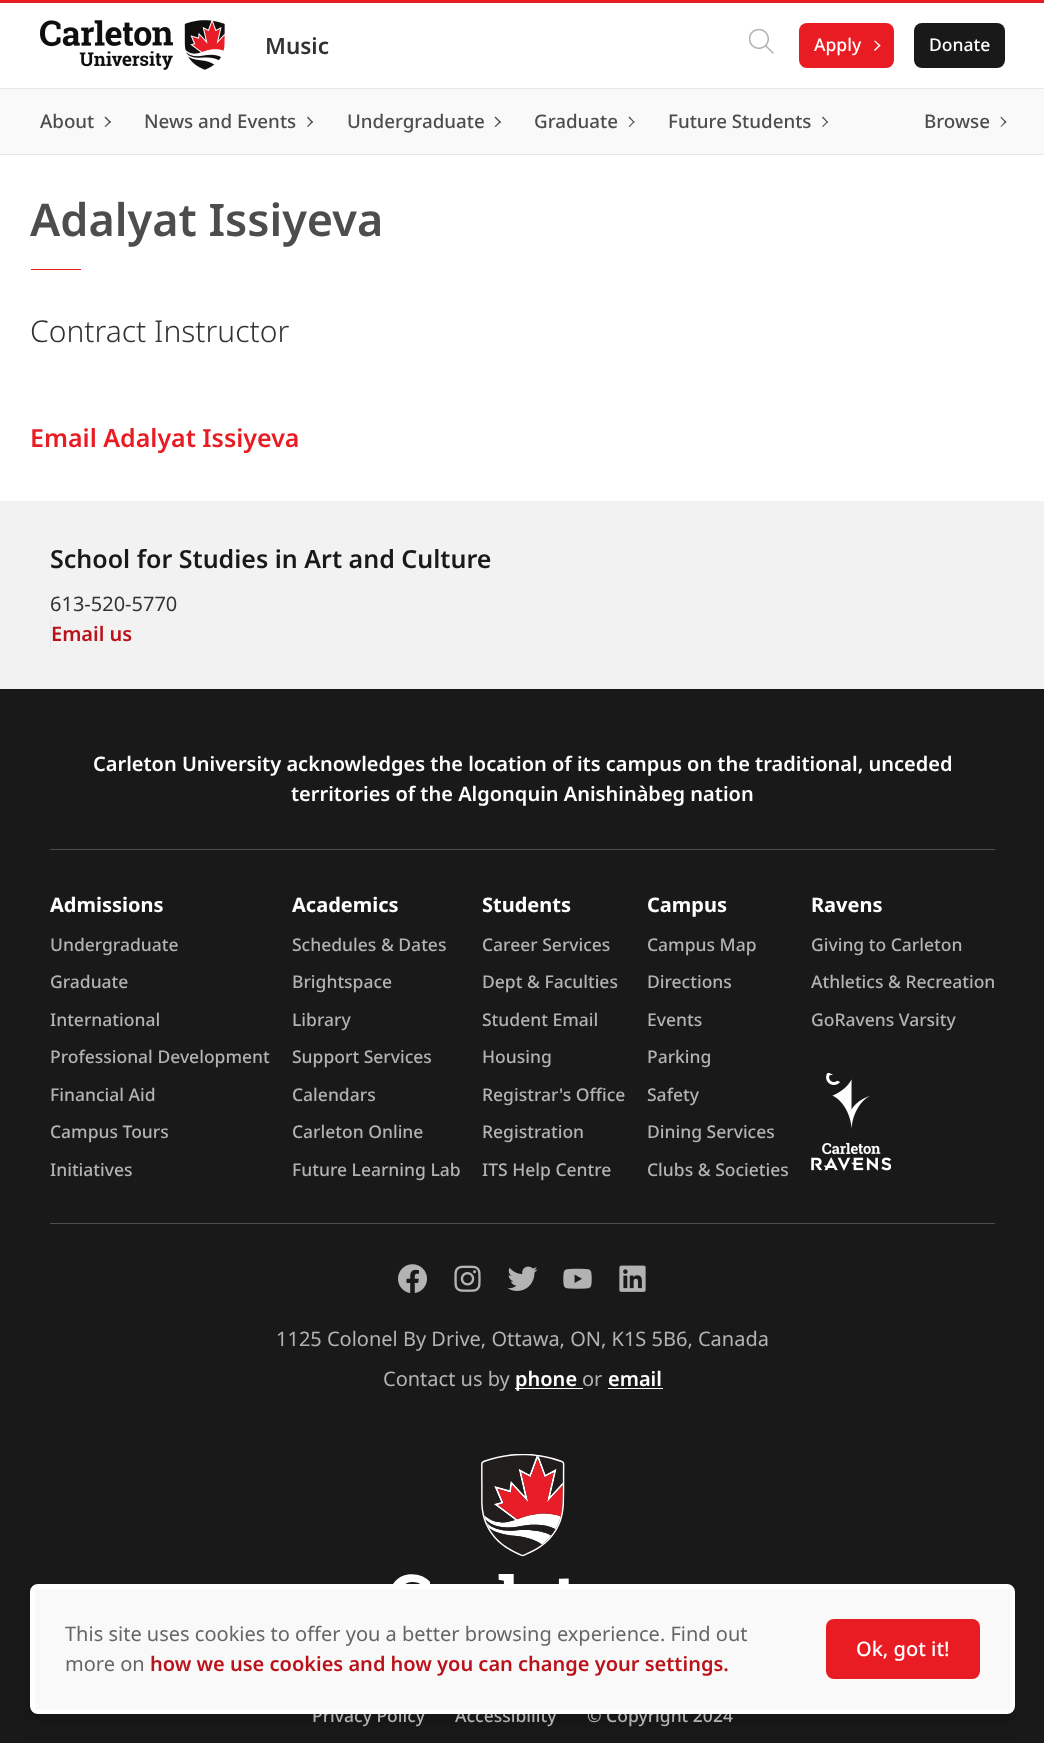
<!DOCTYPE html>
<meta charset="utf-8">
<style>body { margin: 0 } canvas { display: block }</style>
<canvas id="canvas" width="1044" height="1743"></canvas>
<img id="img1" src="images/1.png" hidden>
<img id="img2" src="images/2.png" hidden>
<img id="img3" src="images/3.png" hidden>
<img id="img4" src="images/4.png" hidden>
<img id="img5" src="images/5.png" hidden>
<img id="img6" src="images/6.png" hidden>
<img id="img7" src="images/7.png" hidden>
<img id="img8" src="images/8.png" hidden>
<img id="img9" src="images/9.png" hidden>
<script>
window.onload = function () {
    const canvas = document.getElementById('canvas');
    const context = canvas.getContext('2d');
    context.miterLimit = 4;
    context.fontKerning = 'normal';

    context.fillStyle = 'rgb(255, 255, 255)';
    context.fillRect(0, 0, 1044, 1743);
    context.fillStyle = 'rgb(233, 28, 36)';
    context.fillRect(0, 0, 1044, 3);
    context.fillStyle = 'rgb(230, 230, 230)';
    context.fillRect(0, 154, 1044, 1);
    context.drawImage(document.getElementById('img1'), 40, 20, 185, 50);
    context.drawImage(document.getElementById('img2'), 749, 29, 25, 25);
    context.fillStyle = 'rgb(233, 28, 36)';
    context.beginPath();
    context.roundRect(799, 23, 95, 45, 8);
    context.fill();
    context.fillStyle = 'rgb(255, 255, 255)';
    context.beginPath();
    context.moveTo(880.5, 45.5);
    context.lineTo(875, 51);
    context.lineTo(874, 50);
    context.lineTo(879.5, 44.5);
    context.closePath();
    context.fill();
    context.beginPath();
    context.moveTo(880.5, 45.5);
    context.lineTo(879.5, 46.5);
    context.lineTo(874, 41);
    context.lineTo(875, 40.5);
    context.closePath();
    context.fill();
    context.fillStyle = 'rgb(25, 25, 25)';
    context.beginPath();
    context.roundRect(914, 23, 91, 45, 8);
    context.fill();
    context.fillStyle = 'rgb(249, 249, 249)';
    context.fillRect(0, 89, 1044, 65);
    context.fillStyle = 'rgb(230, 230, 230)';
    context.fillRect(0, 88, 1044, 1);
    context.fillStyle = 'rgb(77, 77, 77)';
    context.beginPath();
    context.moveTo(111, 122);
    context.lineTo(105.5, 127);
    context.lineTo(104.5, 126.5);
    context.lineTo(110, 121);
    context.closePath();
    context.fill();
    context.beginPath();
    context.moveTo(111, 122);
    context.lineTo(110, 123);
    context.lineTo(104.5, 117.5);
    context.lineTo(105.5, 116.5);
    context.closePath();
    context.fill();
    context.beginPath();
    context.moveTo(313, 122);
    context.lineTo(308, 127);
    context.lineTo(307, 126.5);
    context.lineTo(312, 121);
    context.closePath();
    context.fill();
    context.beginPath();
    context.moveTo(313, 122);
    context.lineTo(312, 123);
    context.lineTo(307, 117.5);
    context.lineTo(308, 116.5);
    context.closePath();
    context.fill();
    context.beginPath();
    context.moveTo(501, 122);
    context.lineTo(495.5, 127);
    context.lineTo(494.5, 126.5);
    context.lineTo(500, 121);
    context.closePath();
    context.fill();
    context.beginPath();
    context.moveTo(501, 122);
    context.lineTo(500, 123);
    context.lineTo(494.5, 117.5);
    context.lineTo(495.5, 116.5);
    context.closePath();
    context.fill();
    context.beginPath();
    context.moveTo(634.5, 122);
    context.lineTo(629.5, 127);
    context.lineTo(628.5, 126.5);
    context.lineTo(634, 121);
    context.closePath();
    context.fill();
    context.beginPath();
    context.moveTo(634.5, 122);
    context.lineTo(634, 123);
    context.lineTo(628.5, 117.5);
    context.lineTo(629.5, 116.5);
    context.closePath();
    context.fill();
    context.beginPath();
    context.moveTo(828, 122);
    context.lineTo(823, 127);
    context.lineTo(822, 126.5);
    context.lineTo(827.5, 121);
    context.closePath();
    context.fill();
    context.beginPath();
    context.moveTo(828, 122);
    context.lineTo(827.5, 123);
    context.lineTo(822, 117.5);
    context.lineTo(823, 116.5);
    context.closePath();
    context.fill();
    context.beginPath();
    context.moveTo(1006.5, 122);
    context.lineTo(1001, 127);
    context.lineTo(1000.5, 126.5);
    context.lineTo(1005.5, 121);
    context.closePath();
    context.fill();
    context.beginPath();
    context.moveTo(1006.5, 122);
    context.lineTo(1005.5, 123);
    context.lineTo(1000.5, 117.5);
    context.lineTo(1001, 116.5);
    context.closePath();
    context.fill();
    context.fillStyle = 'rgb(233, 28, 36)';
    context.fillRect(31, 269, 50, 1);
    context.fillStyle = 'rgb(242, 242, 242)';
    context.fillRect(0, 501, 1044, 188);
    context.fillStyle = 'rgb(229, 231, 235)';
    context.fillRect(50, 619, 1, 30);
    context.fillStyle = 'rgb(25, 25, 25)';
    context.fillRect(0, 689, 1044, 1054);
    context.fillStyle = 'rgb(77, 77, 77)';
    context.fillRect(50, 849, 945, 1);
    context.fillRect(50, 1223, 945, 1);
    context.drawImage(document.getElementById('img3'), 811, 1073, 80, 98);
    context.drawImage(document.getElementById('img4'), 398, 1264, 29, 29);
    context.drawImage(document.getElementById('img5'), 454, 1265, 27, 27);
    context.drawImage(document.getElementById('img6'), 508, 1266, 30, 25);
    context.drawImage(document.getElementById('img7'), 563, 1268, 29, 21);
    context.drawImage(document.getElementById('img8'), 619, 1265, 27, 27);
    context.fillStyle = 'rgb(255, 255, 255)';
    context.fillRect(515, 1388, 68, 1);
    context.fillRect(608, 1388, 55, 1);
    context.drawImage(document.getElementById('img9'), 393, 1454, 176, 130);
    context.fillStyle = 'rgba(0, 0, 0, 0.1)';
    context.filter = 'blur(4px)';
    context.beginPath();
    context.roundRect(35, 1594, 975, 120, 2.5);
    context.fill();
    context.filter = 'none';
    context.filter = 'blur(9.5px)';
    context.beginPath();
    context.roundRect(34, 1600, 977, 123, 4);
    context.fill();
    context.filter = 'none';
    context.font = '600 22.5px Noto Sans';
    context.fillStyle = 'rgb(51, 51, 51)';
    context.fillText('Music', 265, 54);
    context.font = '500 17.5px Noto Sans';
    context.fillStyle = 'rgb(255, 255, 255)';
    context.fillText('Apply', 814, 51);
    context.fillText('Donate', 929, 51);
    context.font = '500 18.75px Noto Sans';
    context.fillStyle = 'rgb(77, 77, 77)';
    context.fillText('About', 40, 128);
    context.fillText('News and Events', 144, 128);
    context.fillText('Undergraduate', 347, 128);
    context.fillText('Graduate', 534, 128);
    context.fillText('Future Students', 668, 128);
    context.fillText('Browse', 924, 128);
    context.font = '600 45px Noto Sans';
    context.fillText('Adalyat Issiyeva', 30, 236);
    context.font = '300 30px Noto Sans';
    context.fillStyle = 'rgb(51, 51, 51)';
    context.fillText('Contract Instructor', 30, 342);
    context.font = '600 25px Noto Sans';
    context.fillStyle = 'rgb(233, 28, 36)';
    context.fillText('Email Adalyat Issiyeva', 30, 447);
    context.fillStyle = 'rgb(25, 25, 25)';
    context.fillText('School for Studies in Art and Culture', 50, 568);
    context.font = '20px Noto Sans';
    context.fillStyle = 'rgb(51, 51, 51)';
    context.fillText('613-520-5770', 50, 611);
    context.font = '600 20px Noto Sans';
    context.fillStyle = 'rgb(187, 18, 25)';
    context.fillText('Email us', 51, 641);
    context.fillStyle = 'rgb(255, 255, 255)';
    context.fillText('Carleton University acknowledges the location of its campus on the traditional, unceded', 93, 771);
    context.fillText('territories of the Algonquin Anishinàbeg nation', 291, 801);
    context.font = 'bold 20px Noto Sans';
    context.fillText('Admissions', 50, 912);
    context.font = '500 17.5px Noto Sans';
    context.fillStyle = 'rgb(179, 179, 179)';
    context.fillText('Undergraduate', 50, 951);
    context.fillText('Graduate', 50, 988);
    context.fillText('International', 50, 1026);
    context.fillText('Professional Development', 50, 1063);
    context.fillText('Financial Aid', 50, 1101);
    context.fillText('Campus Tours', 50, 1138);
    context.fillText('Initiatives', 50, 1176);
    context.font = 'bold 20px Noto Sans';
    context.fillStyle = 'rgb(255, 255, 255)';
    context.fillText('Academics', 292, 912);
    context.font = '500 17.5px Noto Sans';
    context.fillStyle = 'rgb(179, 179, 179)';
    context.fillText('Schedules & Dates', 292, 951);
    context.fillText('Brightspace', 292, 988);
    context.fillText('Library', 292, 1026);
    context.fillText('Support Services', 292, 1063);
    context.fillText('Calendars', 292, 1101);
    context.fillText('Carleton Online', 292, 1138);
    context.fillText('Future Learning Lab', 292, 1176);
    context.font = 'bold 20px Noto Sans';
    context.fillStyle = 'rgb(255, 255, 255)';
    context.fillText('Students', 482, 912);
    context.font = '500 17.5px Noto Sans';
    context.fillStyle = 'rgb(179, 179, 179)';
    context.fillText('Career Services', 482, 951);
    context.fillText('Dept & Faculties', 482, 988);
    context.fillText('Student Email', 482, 1026);
    context.fillText('Housing', 482, 1063);
    context.fillText('Registrar\'s Office', 482, 1101);
    context.fillText('Registration', 482, 1138);
    context.fillText('ITS Help Centre', 482, 1176);
    context.font = 'bold 20px Noto Sans';
    context.fillStyle = 'rgb(255, 255, 255)';
    context.fillText('Campus', 647, 912);
    context.font = '500 17.5px Noto Sans';
    context.fillStyle = 'rgb(179, 179, 179)';
    context.fillText('Campus Map', 647, 951);
    context.fillText('Directions', 647, 988);
    context.fillText('Events', 647, 1026);
    context.fillText('Parking', 647, 1063);
    context.fillText('Safety', 647, 1101);
    context.fillText('Dining Services', 647, 1138);
    context.fillText('Clubs & Societies', 647, 1176);
    context.font = 'bold 20px Noto Sans';
    context.fillStyle = 'rgb(255, 255, 255)';
    context.fillText('Ravens', 811, 912);
    context.font = '500 17.5px Noto Sans';
    context.fillStyle = 'rgb(179, 179, 179)';
    context.fillText('Giving to Carleton', 811, 951);
    context.fillText('Athletics & Recreation', 811, 988);
    context.fillText('GoRavens Varsity', 811, 1026);
    context.font = '20px Noto Sans';
    context.fillText('1125 Colonel By Drive, Ottawa, ON, K1S 5B6, Canada', 276, 1346);
    context.fillText('Contact us by', 383, 1386);
    context.font = '600 20px Noto Sans';
    context.fillStyle = 'rgb(255, 255, 255)';
    context.fillText('phone', 515, 1386);
    context.font = '20px Noto Sans';
    context.fillStyle = 'rgb(179, 179, 179)';
    context.fillText('or', 582, 1386);
    context.font = '600 20px Noto Sans';
    context.fillStyle = 'rgb(255, 255, 255)';
    context.fillText('email', 608, 1386);
    context.font = '500 17.5px Noto Sans';
    context.fillStyle = 'rgb(179, 179, 179)';
    context.fillText('Privacy Policy', 312, 1722);
    context.fillText('Accessibility', 455, 1722);
    context.fillText('© Copyright 2024', 587, 1722);
    context.fillStyle = 'rgb(249, 249, 249)';
    context.beginPath();
    context.roundRect(32.5, 1586.5, 980, 125, 5.5);
    context.fill();
    context.strokeStyle = 'rgb(255, 255, 255)';
    context.lineWidth = 5;
    context.stroke();
    context.font = '20px Noto Sans';
    context.fillStyle = 'rgb(102, 102, 102)';
    context.fillText('This site uses cookies to offer you a better browsing experience. Find out', 65, 1641);
    context.fillText('more on', 65, 1671);
    context.font = '600 20px Noto Sans';
    context.fillStyle = 'rgb(187, 18, 25)';
    context.fillText('how we use cookies and how you can change your settings.', 150, 1671);
    context.fillStyle = 'rgb(233, 28, 36)';
    context.beginPath();
    context.roundRect(826, 1619, 154, 60, 8);
    context.fill();
    context.font = '500 20px Noto Sans';
    context.fillStyle = 'rgb(255, 255, 255)';
    context.fillText('Ok, got it!', 856, 1656);
};
</script>
